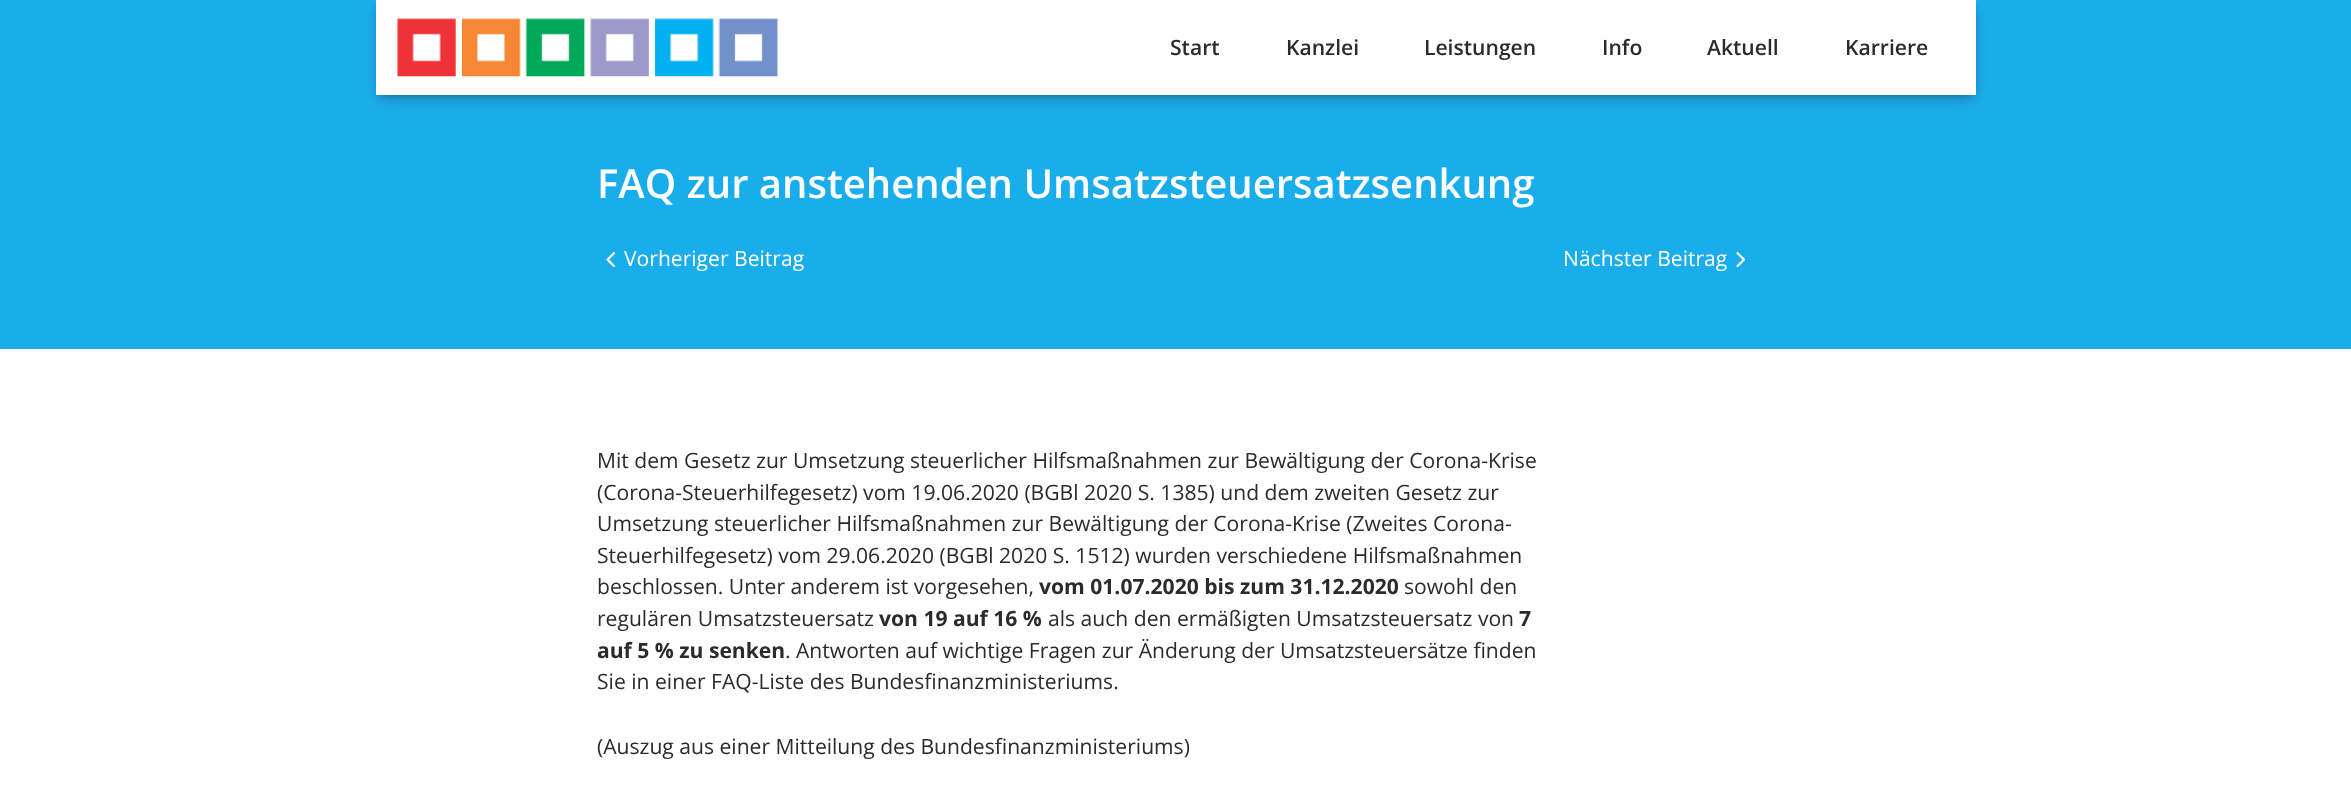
<!DOCTYPE html>
<meta charset="utf-8">
<style>body { margin: 0 } canvas { display: block }</style>
<canvas id="canvas" width="2351" height="808"></canvas>
<img id="img1" src="images/1.png" hidden>
<img id="img2" src="images/2.png" hidden>
<img id="img3" src="images/3.png" hidden>
<script>
window.onload = function () {
    const canvas = document.getElementById('canvas');
    const context = canvas.getContext('2d');
    context.miterLimit = 4;
    context.fontKerning = 'normal';

    context.fillStyle = 'rgb(255, 255, 255)';
    context.fillRect(0, 0, 2351, 808);
    context.fillStyle = 'rgb(26, 173, 235)';
    context.fillRect(0, 0, 2351, 349);
    context.fillStyle = 'rgba(0, 0, 0, 0.3)';
    context.filter = 'blur(4.5px)';
    context.beginPath();
    context.rect(380, 8, 1593, 87);
    context.fill();
    context.filter = 'none';
    context.fillStyle = 'rgba(50, 50, 93, 0.25)';
    context.filter = 'blur(7.5px)';
    context.beginPath();
    context.rect(379, 10, 1595, 90);
    context.fill();
    context.filter = 'none';
    context.fillStyle = 'rgb(255, 255, 255)';
    context.fillRect(376, 0, 1600, 95);
    context.drawImage(document.getElementById('img1'), 397, 18, 381, 59);
    context.drawImage(document.getElementById('img2'), 606, 252, 10, 16);
    context.drawImage(document.getElementById('img3'), 1736, 252, 10, 16);
    context.font = '600 21.1px Open Sans';
    context.fillStyle = 'rgb(43, 43, 43)';
    context.fillText('Start', 1170, 55);
    context.fillText('Kanzlei', 1286, 55);
    context.fillText('Leistungen', 1424, 55);
    context.fillText('Info', 1602, 55);
    context.fillText('Aktuell', 1707, 55);
    context.fillText('Karriere', 1845, 55);
    context.font = '600 40px Open Sans';
    context.fillStyle = 'rgb(255, 255, 255)';
    context.fillText('FAQ zur anstehenden Umsatzsteuersatzsenkung', 597, 198);
    context.font = '21.1px Open Sans';
    context.fillText('Vorheriger Beitrag', 624, 266);
    context.fillText('Nächster Beitrag', 1563, 266);
    context.fillStyle = 'rgb(43, 43, 43)';
    context.fillText('Mit dem Gesetz zur Umsetzung steuerlicher Hilfsmaßnahmen zur Bewältigung der Corona-Krise', 597, 468);
    context.fillText('(Corona-Steuerhilfegesetz) vom 19.06.2020 (BGBl 2020 S. 1385) und dem zweiten Gesetz zur', 597, 500);
    context.fillText('Umsetzung steuerlicher Hilfsmaßnahmen zur Bewältigung der Corona-Krise (Zweites Corona-', 597, 531);
    context.fillText('Steuerhilfegesetz) vom 29.06.2020 (BGBl 2020 S. 1512) wurden verschiedene Hilfsmaßnahmen', 597, 563);
    context.fillText('beschlossen. Unter anderem ist vorgesehen,', 597, 594);
    context.font = 'bold 21.1px Open Sans';
    context.fillText('vom 01.07.2020 bis zum 31.12.2020', 1039, 594);
    context.font = '21.1px Open Sans';
    context.fillText('sowohl den', 1404, 594);
    context.fillText('regulären Umsatzsteuersatz', 597, 626);
    context.font = 'bold 21.1px Open Sans';
    context.fillText('von 19 auf 16 %', 879, 626);
    context.font = '21.1px Open Sans';
    context.fillText('als auch den ermäßigten Umsatzsteuersatz von', 1048, 626);
    context.font = 'bold 21.1px Open Sans';
    context.fillText('7', 1519, 626);
    context.fillText('auf 5 % zu senken', 597, 658);
    context.font = '21.1px Open Sans';
    context.fillText('. Antworten auf wichtige Fragen zur Änderung der Umsatzsteuersätze finden', 785, 658);
    context.fillText('Sie in einer FAQ-Liste des Bundesfinanzministeriums.', 597, 689);
    context.fillText('(Auszug aus einer Mitteilung des Bundesfinanzministeriums)', 597, 754);
};
</script>
